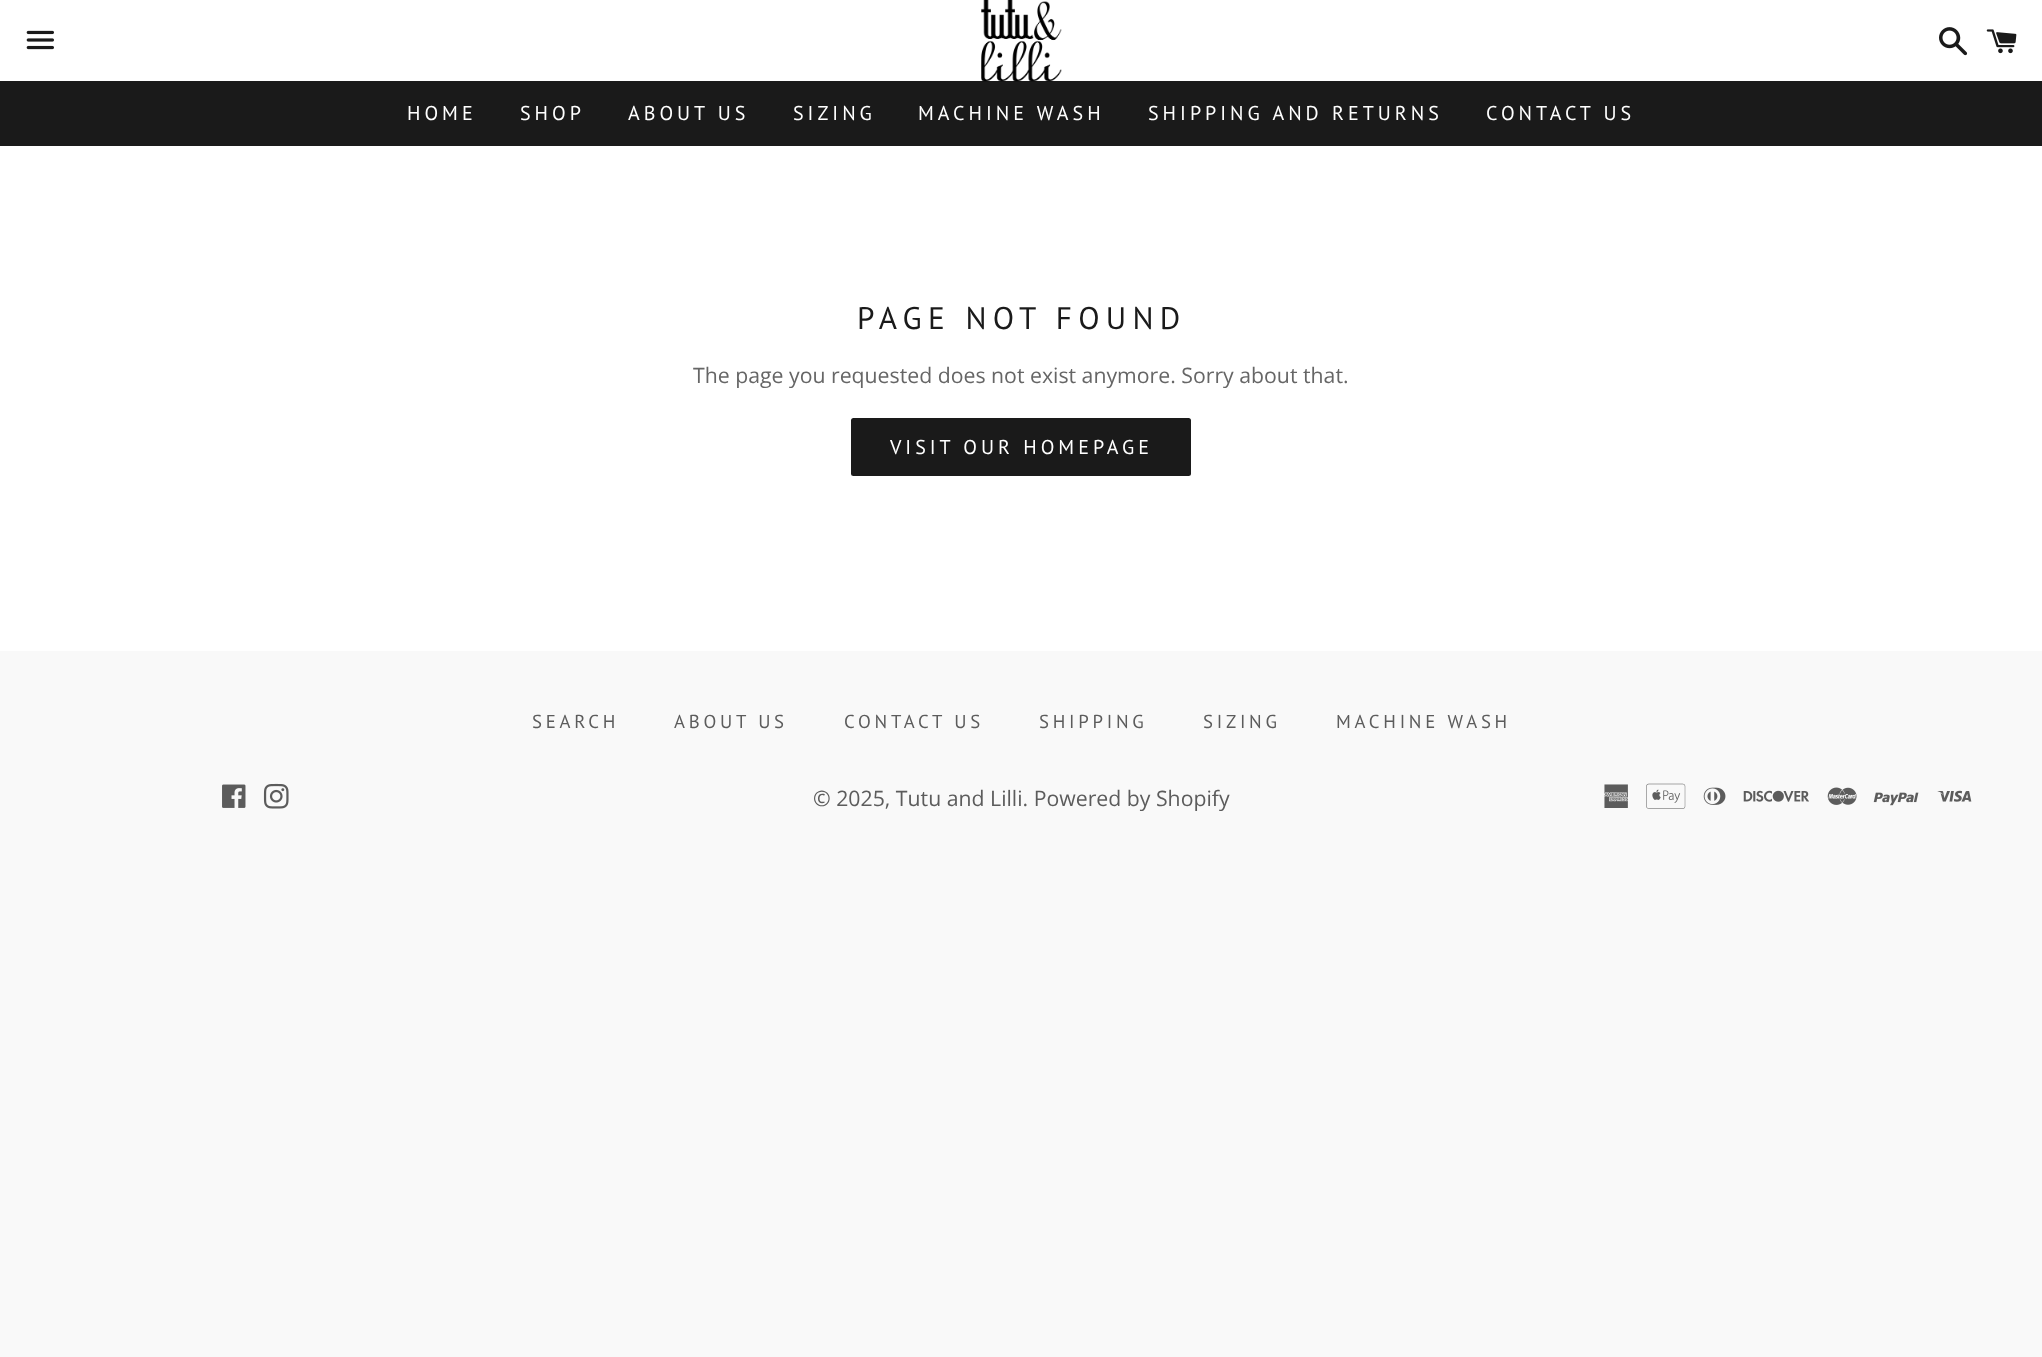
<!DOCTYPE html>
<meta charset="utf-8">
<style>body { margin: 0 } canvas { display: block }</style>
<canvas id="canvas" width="2042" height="1357"></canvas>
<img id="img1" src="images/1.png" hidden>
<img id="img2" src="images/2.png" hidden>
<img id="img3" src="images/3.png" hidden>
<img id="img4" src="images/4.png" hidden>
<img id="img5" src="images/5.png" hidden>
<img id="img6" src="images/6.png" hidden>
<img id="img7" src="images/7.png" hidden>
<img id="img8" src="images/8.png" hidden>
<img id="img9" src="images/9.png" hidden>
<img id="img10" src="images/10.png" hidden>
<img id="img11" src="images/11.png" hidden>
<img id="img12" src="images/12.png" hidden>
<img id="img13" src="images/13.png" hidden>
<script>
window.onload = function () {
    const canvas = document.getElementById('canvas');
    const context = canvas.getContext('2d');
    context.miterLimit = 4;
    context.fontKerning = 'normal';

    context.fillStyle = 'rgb(249, 249, 249)';
    context.fillRect(0, 0, 2042, 1357);
    context.fillStyle = 'rgb(255, 255, 255)';
    context.fillRect(0, 0, 2042, 651);
    context.drawImage(document.getElementById('img1'), 26, 30, 28, 20);
    context.fillStyle = 'rgb(26, 26, 26)';
    context.fillRect(0, 81, 2042, 65);
    context.drawImage(document.getElementById('img2'), 981, 0, 81, 82);
    context.drawImage(document.getElementById('img3'), 1939, 27, 29, 29);
    context.drawImage(document.getElementById('img4'), 1986, 29, 31, 25);
    context.beginPath();
    context.roundRect(851, 418, 340, 58, 2.5);
    context.fill();
    context.drawImage(document.getElementById('img5'), 222, 784, 24, 24);
    context.drawImage(document.getElementById('img6'), 263, 783, 26, 26);
    context.drawImage(document.getElementById('img7'), 1604, 784, 24, 24);
    context.drawImage(document.getElementById('img8'), 1646, 783, 40, 26);
    context.drawImage(document.getElementById('img9'), 1703, 787, 23, 18);
    context.drawImage(document.getElementById('img10'), 1743, 790, 66, 12);
    context.drawImage(document.getElementById('img11'), 1827, 787, 30, 18);
    context.drawImage(document.getElementById('img12'), 1873, 792, 46, 14);
    context.drawImage(document.getElementById('img13'), 1937, 790, 35, 12);
    context.letterSpacing = '4px';
    context.font = '20px PT Sans';
    context.fillStyle = 'rgb(255, 255, 255)';
    context.fillText('HOME', 407, 120);
    context.fillText('SHOP', 520, 120);
    context.fillText('ABOUT US', 628, 120);
    context.fillText('SIZING', 793, 120);
    context.fillText('MACHINE WASH', 918, 120);
    context.fillText('SHIPPING AND RETURNS', 1148, 120);
    context.fillText('CONTACT US', 1486, 120);
    context.letterSpacing = '6.25px';
    context.font = '31.25px PT Sans';
    context.fillStyle = 'rgb(26, 26, 26)';
    context.fillText('PAGE NOT FOUND', 857, 329);
    context.letterSpacing = '0px';
    context.font = '21.25px Open Sans';
    context.fillStyle = 'rgb(102, 102, 102)';
    context.fillText('The page you requested does not exist anymore. Sorry about that.', 693, 383);
    context.letterSpacing = '4px';
    context.font = '20px PT Sans';
    context.fillStyle = 'rgb(255, 255, 255)';
    context.fillText('VISIT OUR HOMEPAGE', 890, 454);
    context.letterSpacing = '3.75px';
    context.font = '18.75px PT Sans';
    context.fillStyle = 'rgb(92, 92, 92)';
    context.fillText('SEARCH', 532, 728);
    context.fillText('ABOUT US', 674, 728);
    context.fillText('CONTACT US', 844, 728);
    context.fillText('SHIPPING', 1039, 728);
    context.fillText('SIZING', 1203, 728);
    context.fillText('MACHINE WASH', 1336, 728);
    context.letterSpacing = '0px';
    context.font = '21.25px Open Sans';
    context.fillText('© 2025, Tutu and Lilli. Powered by Shopify', 813, 806);
};
</script>
